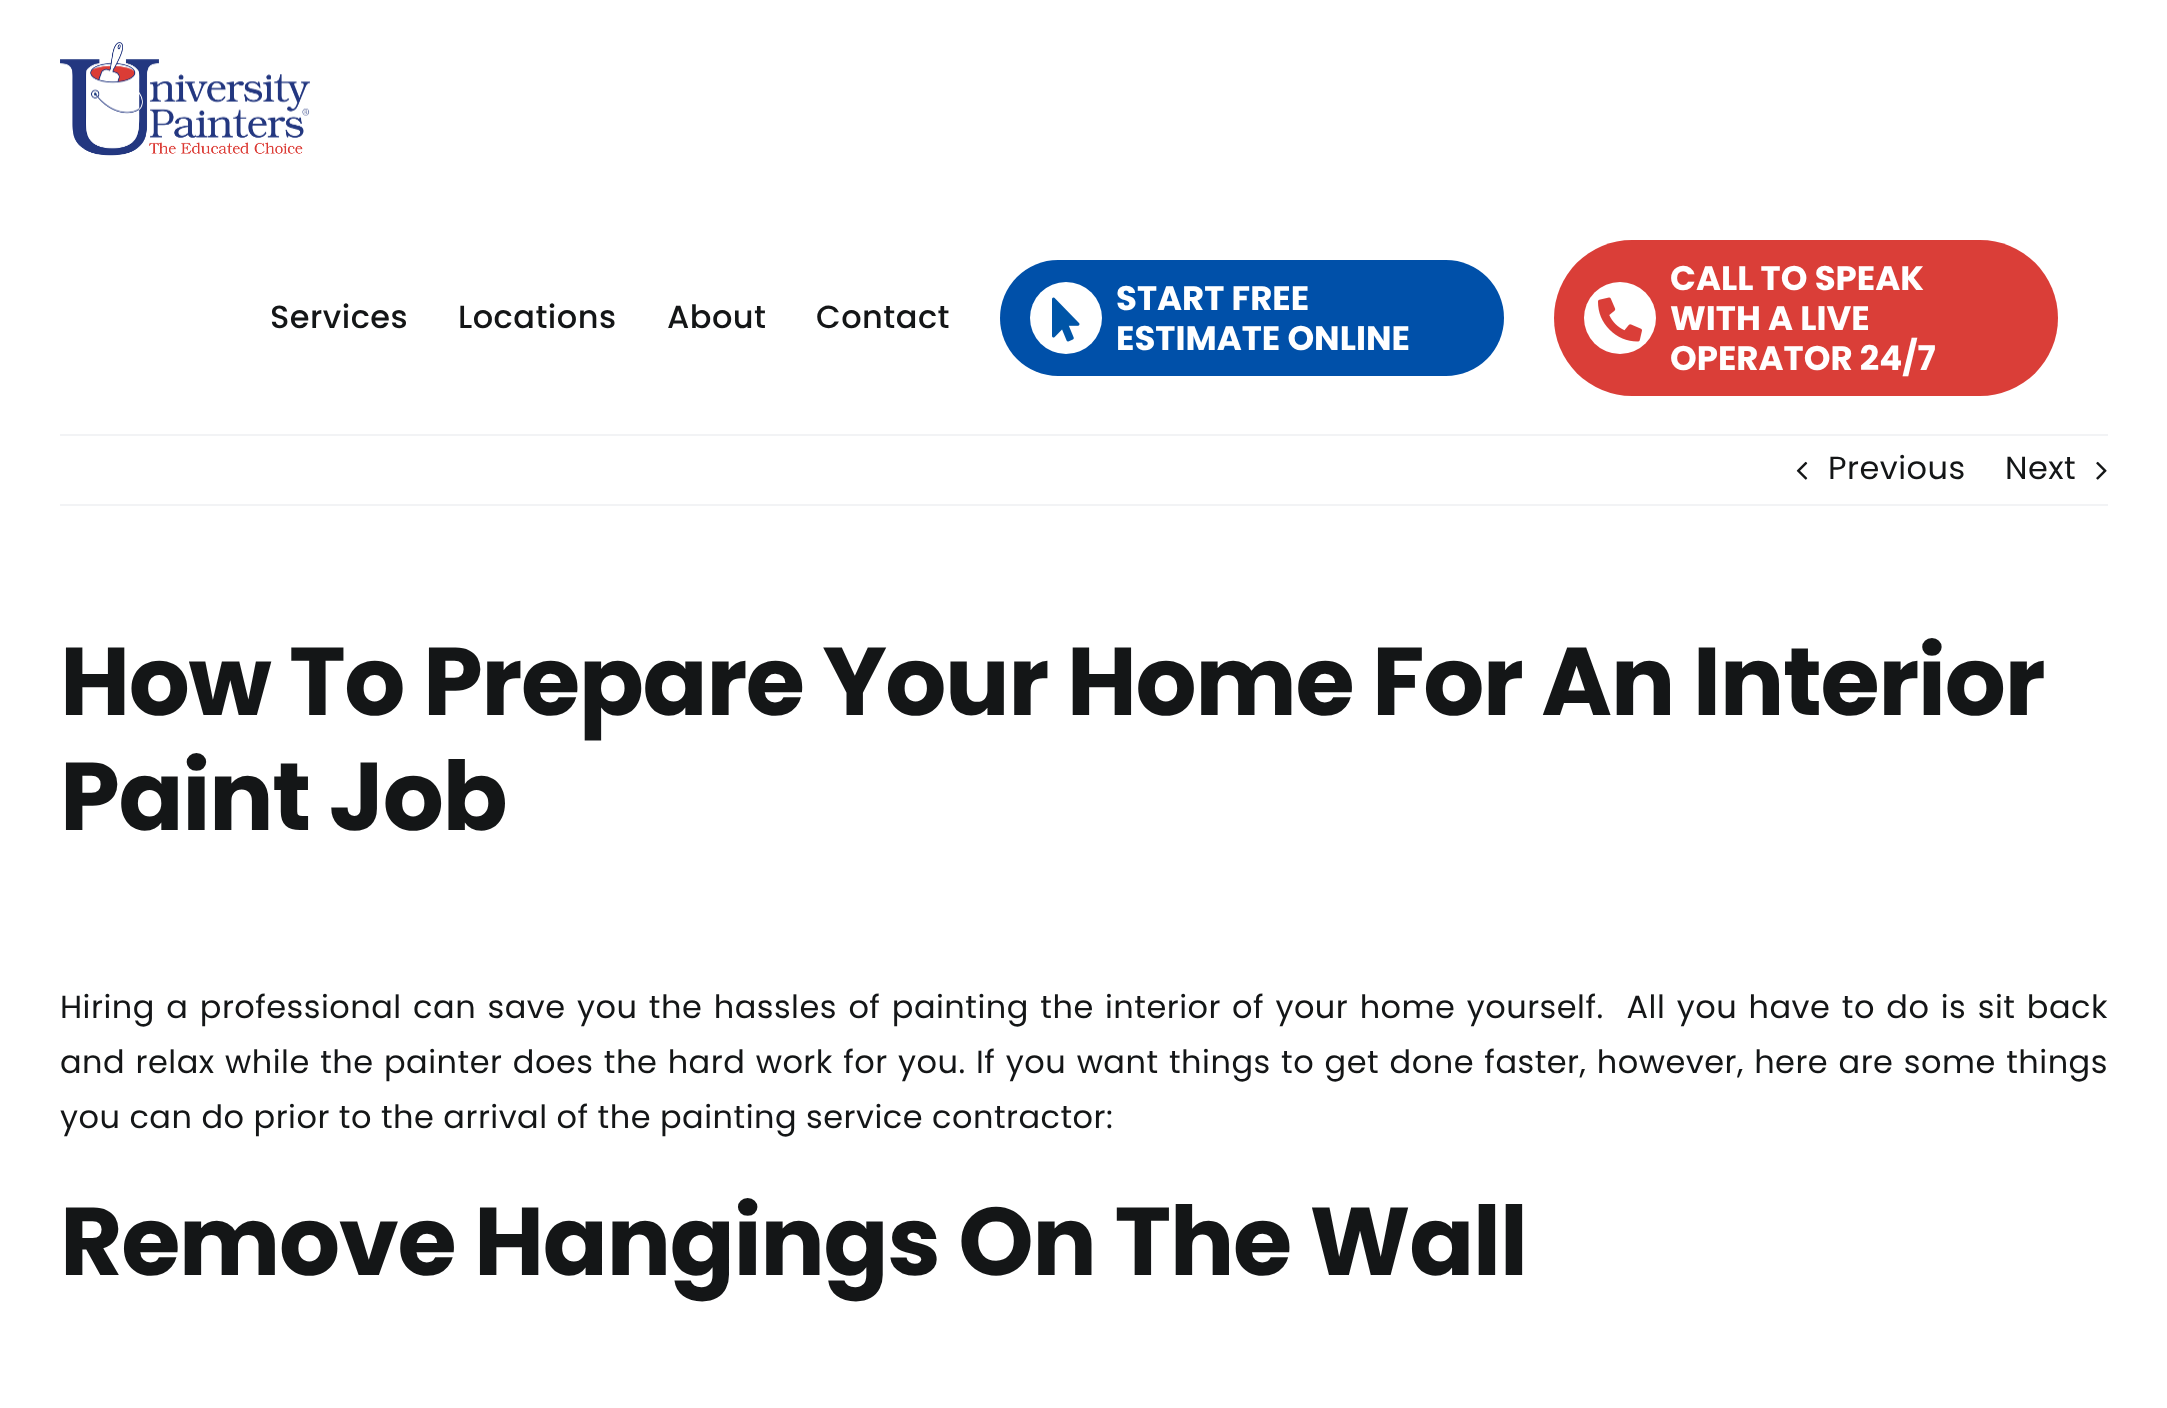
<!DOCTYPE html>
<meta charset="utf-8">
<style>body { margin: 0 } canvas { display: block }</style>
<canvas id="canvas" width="2167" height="1408"></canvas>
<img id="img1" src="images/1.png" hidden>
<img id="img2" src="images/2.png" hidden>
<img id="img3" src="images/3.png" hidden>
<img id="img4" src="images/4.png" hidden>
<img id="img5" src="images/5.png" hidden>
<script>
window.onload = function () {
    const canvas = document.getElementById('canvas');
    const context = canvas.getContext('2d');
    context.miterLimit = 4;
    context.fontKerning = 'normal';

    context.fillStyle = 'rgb(255, 255, 255)';
    context.fillRect(0, 0, 2167, 1408);
    context.drawImage(document.getElementById('img1'), 60, 42, 250, 114);
    context.fillStyle = 'rgb(0, 80, 169)';
    context.beginPath();
    context.roundRect(1000, 260, 504, 116, 58);
    context.fill();
    context.fillStyle = 'rgb(255, 255, 255)';
    context.beginPath();
    context.arc(1066, 318, 36, 0, 2 * Math.PI);
    context.fill();
    context.drawImage(document.getElementById('img2'), 1052, 297, 28, 45);
    context.fillStyle = 'rgb(218, 62, 56)';
    context.beginPath();
    context.roundRect(1554, 240, 504, 156, 78);
    context.fill();
    context.fillStyle = 'rgb(255, 255, 255)';
    context.beginPath();
    context.arc(1620, 318, 36, 0, 2 * Math.PI);
    context.fill();
    context.drawImage(document.getElementById('img3'), 1598, 297, 44, 45);
    context.fillStyle = 'rgb(242, 243, 245)';
    context.fillRect(60, 434, 2048, 2);
    context.fillRect(60, 504, 2048, 2);
    context.drawImage(document.getElementById('img4'), 1796, 461, 12, 19);
    context.drawImage(document.getElementById('img5'), 2096, 461, 11, 19);
    context.letterSpacing = '0.48px';
    context.font = '500 32px Poppins';
    context.fillStyle = 'rgb(20, 22, 23)';
    context.fillText('Services', 270, 328);
    context.fillText('Locations', 458, 328);
    context.fillText('About', 667, 328);
    context.fillText('Contact', 816, 328);
    context.letterSpacing = '0px';
    context.font = 'bold 34px Poppins';
    context.fillStyle = 'rgb(255, 255, 255)';
    context.fillText('START FREE', 1116, 310);
    context.fillText('ESTIMATE ONLINE', 1116, 350);
    context.fillText('CALL TO SPEAK', 1670, 290);
    context.fillText('WITH A LIVE', 1670, 330);
    context.fillText('OPERATOR 24/7', 1670, 370);
    context.letterSpacing = '0.48px';
    context.font = '32px Poppins';
    context.fillStyle = 'rgb(20, 22, 23)';
    context.fillText('Previous', 1828, 479);
    context.fillText('Next', 2005, 479);
    context.letterSpacing = '-1.45px';
    context.font = 'bold 96px Poppins';
    context.fillText('How To Prepare Your Home For An Interior', 60, 715);
    context.fillText('Paint Job', 60, 830);
    context.letterSpacing = '0.48px';
    context.wordSpacing = '2.4px';
    context.font = '32px Poppins';
    context.fillText('Hiring a professional can save you the hassles of painting the', 60, 1018);
    context.wordSpacing = '0px';
    context.fillText('interior', 1105, 1018);
    context.wordSpacing = '2.4px';
    context.fillText('of your home yourself.  All you have to do is sit back', 1232, 1018);
    context.wordSpacing = '1.4px';
    context.fillText('and relax while the painter does the hard work for you. If you want things to get done faster, however, here are some things', 60, 1073);
    context.wordSpacing = '0px';
    context.fillText('you can do prior to the arrival of the painting service contractor:', 60, 1128);
    context.letterSpacing = '-1.45px';
    context.font = 'bold 96px Poppins';
    context.fillText('Remove Hangings On The Wall', 60, 1275);
};
</script>
